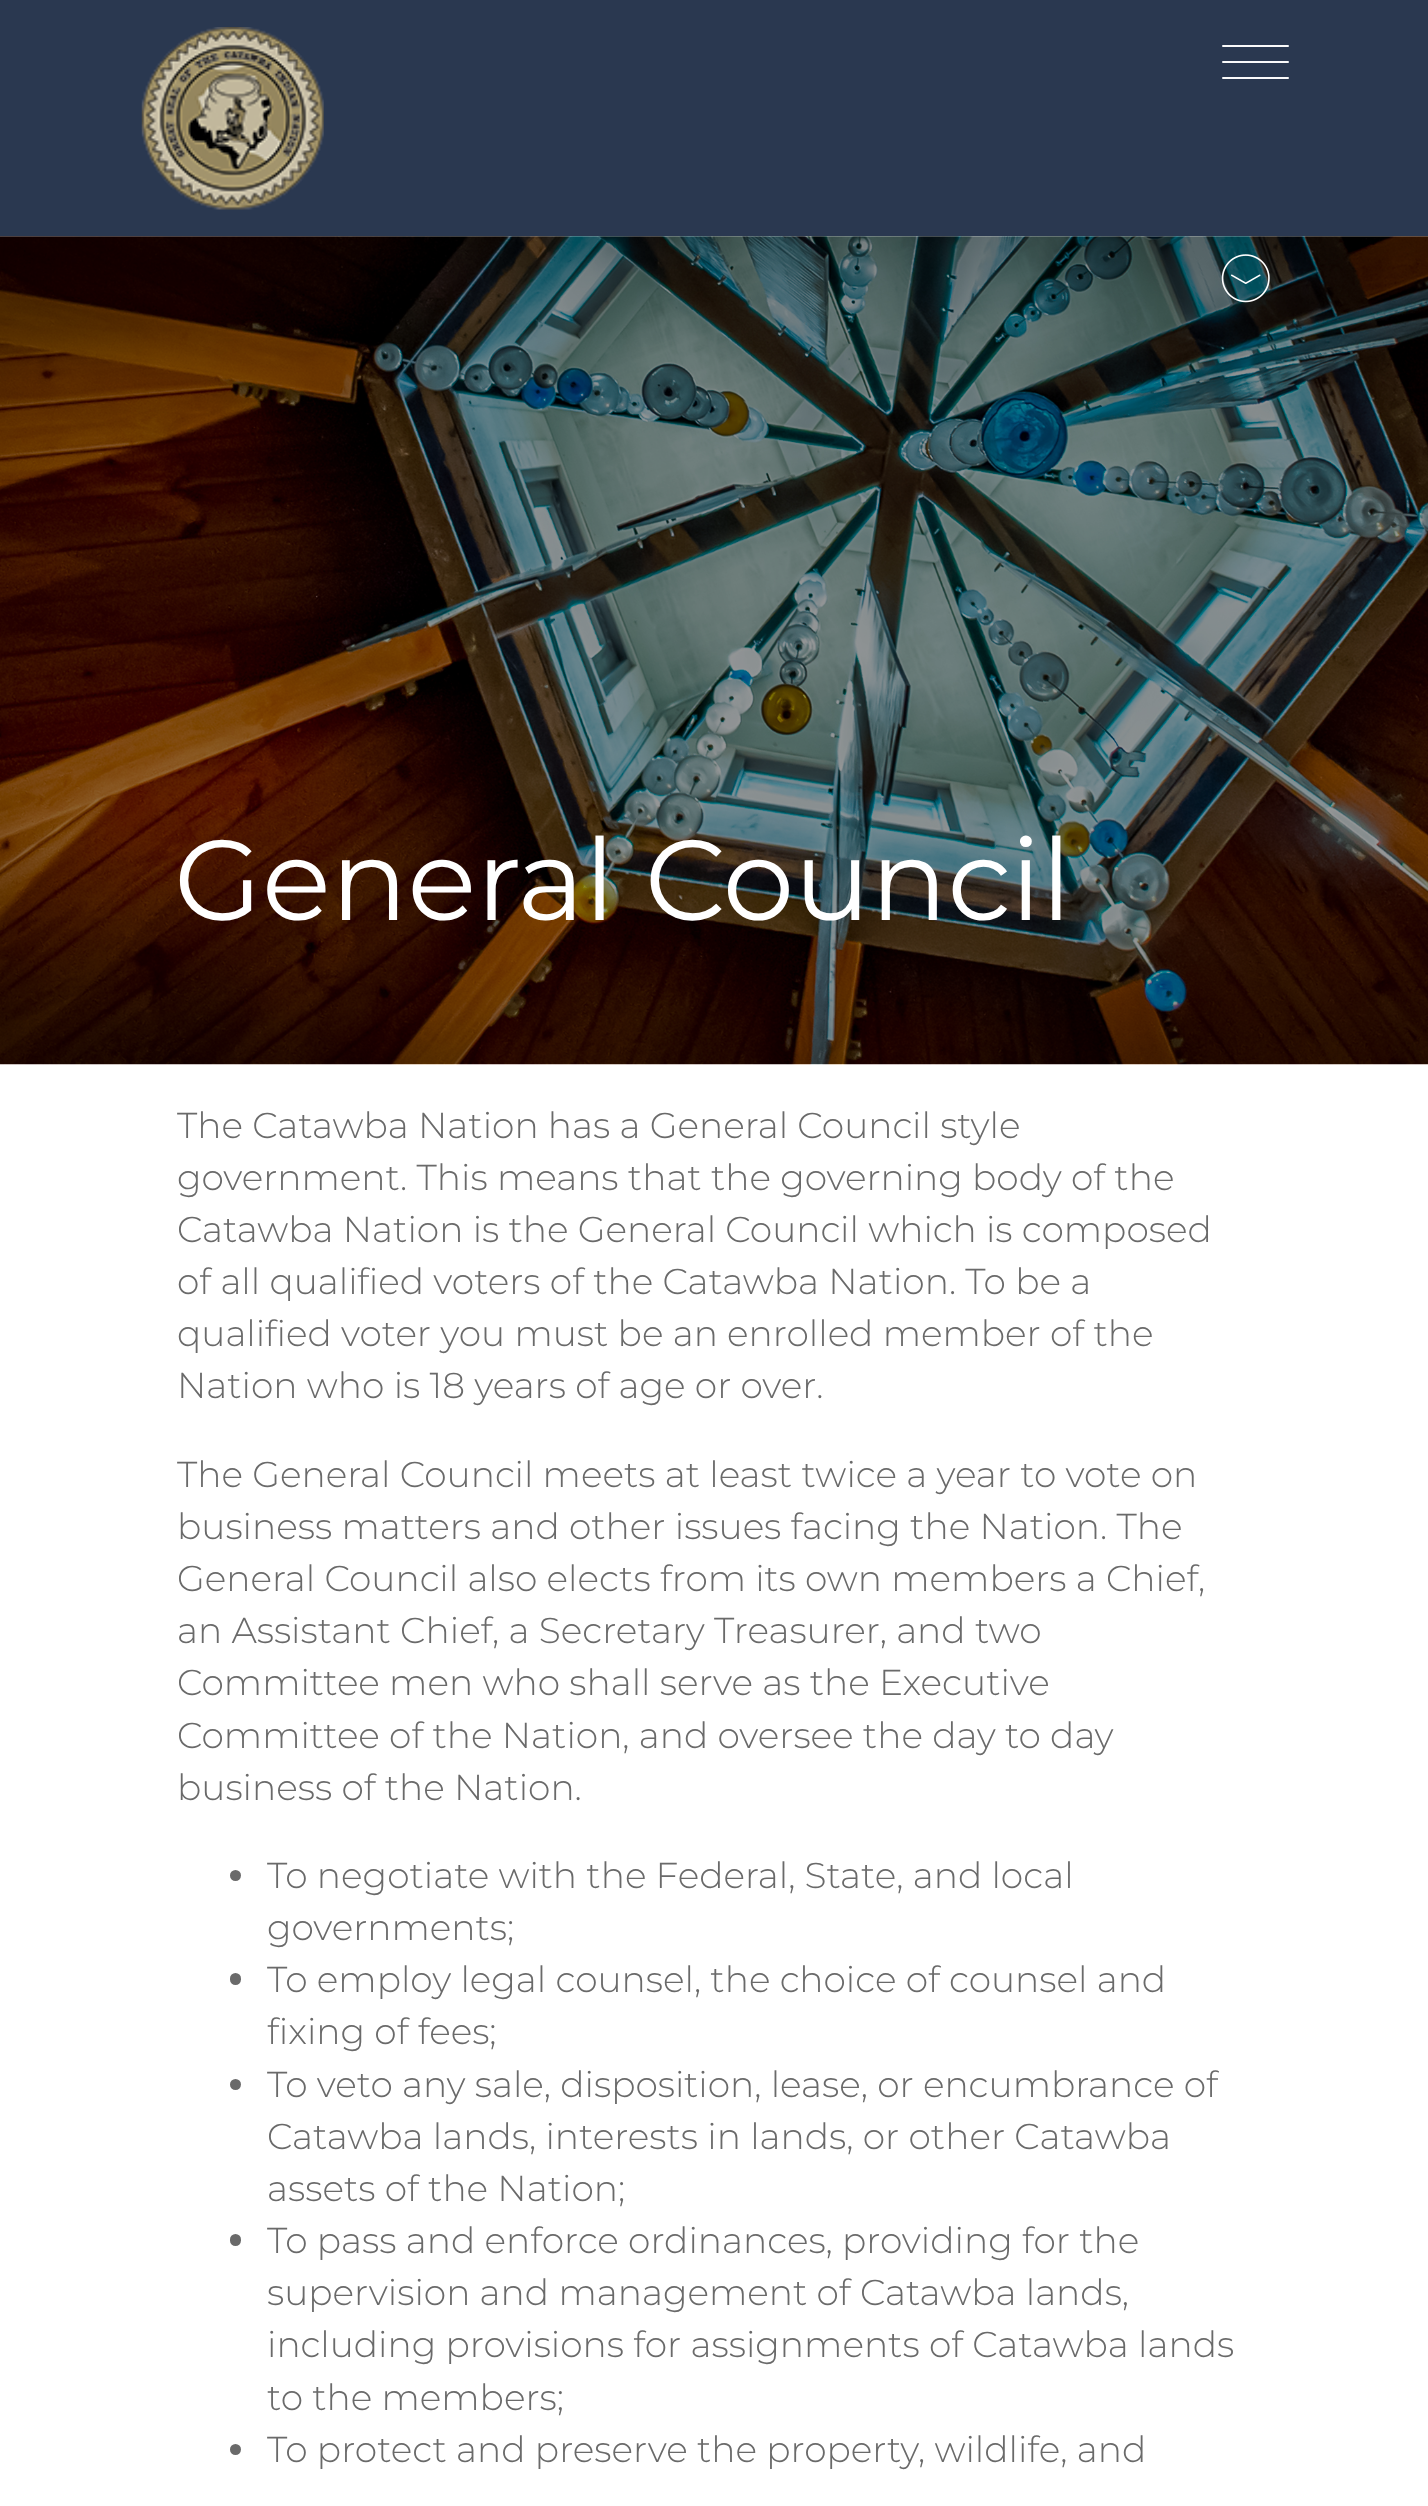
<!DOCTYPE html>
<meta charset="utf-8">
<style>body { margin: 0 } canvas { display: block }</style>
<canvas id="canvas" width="1428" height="2506"></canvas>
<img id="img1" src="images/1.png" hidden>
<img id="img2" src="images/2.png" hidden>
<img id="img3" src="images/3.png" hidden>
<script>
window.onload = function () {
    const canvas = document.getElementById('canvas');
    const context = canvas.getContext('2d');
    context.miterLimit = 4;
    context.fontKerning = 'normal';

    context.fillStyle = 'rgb(255, 255, 255)';
    context.fillRect(0, 0, 1428, 2506);
    context.fillStyle = 'rgb(42, 56, 80)';
    context.fillRect(0, 0, 1428, 236);
    context.drawImage(document.getElementById('img1'), 141, 27, 183, 183);
    context.fillStyle = 'rgb(250, 250, 250)';
    context.beginPath();
    context.roundRect(1222, 61, 67, 2, 1);
    context.fill();
    context.beginPath();
    context.roundRect(1222, 45, 67, 2, 1);
    context.fill();
    context.beginPath();
    context.roundRect(1222, 77, 67, 2, 1);
    context.fill();
    context.drawImage(document.getElementById('img2'), 0, 236, 1428, 829);
    context.drawImage(document.getElementById('img3'), 1221, 254, 49, 49);
    context.fillStyle = 'rgb(106, 106, 106)';
    context.beginPath();
    context.arc(235.5, 1875.5, 5.5, 0, 2 * Math.PI);
    context.fill();
    context.beginPath();
    context.roundRect(230, 1973, 11, 12, 5.5);
    context.fill();
    context.beginPath();
    context.arc(235.5, 2084.5, 5.5, 0, 2 * Math.PI);
    context.fill();
    context.beginPath();
    context.roundRect(230, 2234, 11, 12, 5.5);
    context.fill();
    context.beginPath();
    context.arc(235.5, 2449.5, 5.5, 0, 2 * Math.PI);
    context.fill();
    context.font = '113.75px Montserrat';
    context.fillStyle = 'rgb(255, 255, 255)';
    context.fillText('General Council', 174, 920);
    context.font = '300 36px Montserrat';
    context.fillStyle = 'rgb(106, 106, 106)';
    context.fillText('The Catawba Nation has a General Council style', 177, 1138);
    context.fillText('government. This means that the governing body of the', 177, 1190);
    context.fillText('Catawba Nation is the General Council which is composed', 177, 1242);
    context.fillText('of all qualified voters of the Catawba Nation. To be a', 177, 1294);
    context.fillText('qualified voter you must be an enrolled member of the', 177, 1346);
    context.fillText('Nation who is 18 years of age or over.', 177, 1398);
    context.fillText('The General Council meets at least twice a year to vote on', 177, 1487);
    context.fillText('business matters and other issues facing the Nation. The', 177, 1539);
    context.fillText('General Council also elects from its own members a Chief,', 177, 1591);
    context.fillText('an Assistant Chief, a Secretary Treasurer, and two', 177, 1643);
    context.fillText('Committee men who shall serve as the Executive', 177, 1695);
    context.fillText('Committee of the Nation, and oversee the day to day', 177, 1748);
    context.fillText('business of the Nation.', 177, 1800);
    context.fillText('To negotiate with the Federal, State, and local', 267, 1888);
    context.fillText('governments;', 267, 1940);
    context.fillText('To employ legal counsel, the choice of counsel and', 267, 1992);
    context.fillText('fixing of fees;', 267, 2044);
    context.fillText('To veto any sale, disposition, lease, or encumbrance of', 267, 2097);
    context.fillText('Catawba lands, interests in lands, or other Catawba', 267, 2149);
    context.fillText('assets of the Nation;', 267, 2201);
    context.fillText('To pass and enforce ordinances, providing for the', 267, 2253);
    context.fillText('supervision and management of Catawba lands,', 267, 2305);
    context.fillText('including provisions for assignments of Catawba lands', 267, 2357);
    context.fillText('to the members;', 267, 2410);
    context.fillText('To protect and preserve the property, wildlife, and', 267, 2462);
};
</script>
